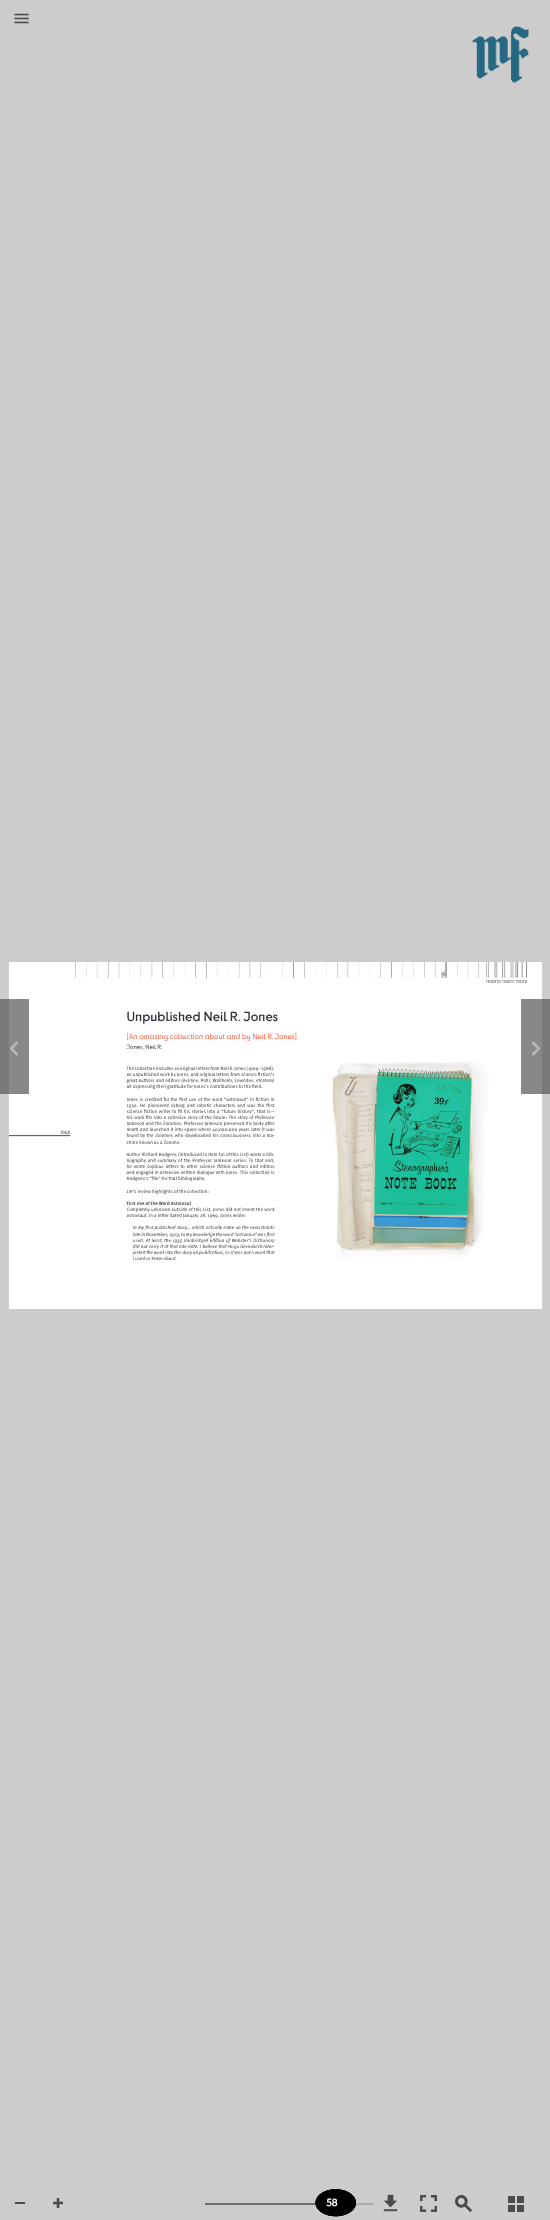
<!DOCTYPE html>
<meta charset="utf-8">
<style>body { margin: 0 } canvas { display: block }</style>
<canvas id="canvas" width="550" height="2220"></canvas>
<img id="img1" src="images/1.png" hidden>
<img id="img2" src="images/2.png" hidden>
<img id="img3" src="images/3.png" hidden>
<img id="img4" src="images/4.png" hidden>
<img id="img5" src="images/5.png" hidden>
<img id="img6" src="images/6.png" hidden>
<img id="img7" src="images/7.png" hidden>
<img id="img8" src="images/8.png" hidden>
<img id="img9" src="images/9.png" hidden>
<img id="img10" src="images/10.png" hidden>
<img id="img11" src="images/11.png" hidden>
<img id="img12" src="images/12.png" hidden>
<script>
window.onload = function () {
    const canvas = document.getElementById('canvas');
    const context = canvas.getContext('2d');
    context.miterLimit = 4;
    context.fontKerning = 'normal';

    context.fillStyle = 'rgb(204, 204, 204)';
    context.fillRect(0, 0, 550, 2220);
    context.drawImage(document.getElementById('img1'), 14, 13, 15, 11);
    context.drawImage(document.getElementById('img2'), 8, 962, 535, 347);
    context.drawImage(document.getElementById('img3'), 60, 971, 467, 289);
    context.fillStyle = 'rgba(85, 85, 85, 0.7)';
    context.fillRect(0, 999, 29, 95);
    context.drawImage(document.getElementById('img4'), 10, 1041, 8, 15);
    context.fillRect(521, 999, 29, 95);
    context.drawImage(document.getElementById('img5'), 532, 1041, 8, 15);
    context.fillStyle = 'rgb(74, 74, 74)';
    context.fillRect(15, 2202, 10, 2);
    context.drawImage(document.getElementById('img6'), 53, 2198, 10, 10);
    context.drawImage(document.getElementById('img7'), 205, 2189, 169, 28);
    context.drawImage(document.getElementById('img8'), 383, 2194, 15, 18);
    context.drawImage(document.getElementById('img9'), 420, 2195, 17, 17);
    context.drawImage(document.getElementById('img10'), 455, 2195, 17, 17);
    context.drawImage(document.getElementById('img11'), 508, 2196, 16, 16);
    context.drawImage(document.getElementById('img12'), 472, 26, 57, 57);
};
</script>
